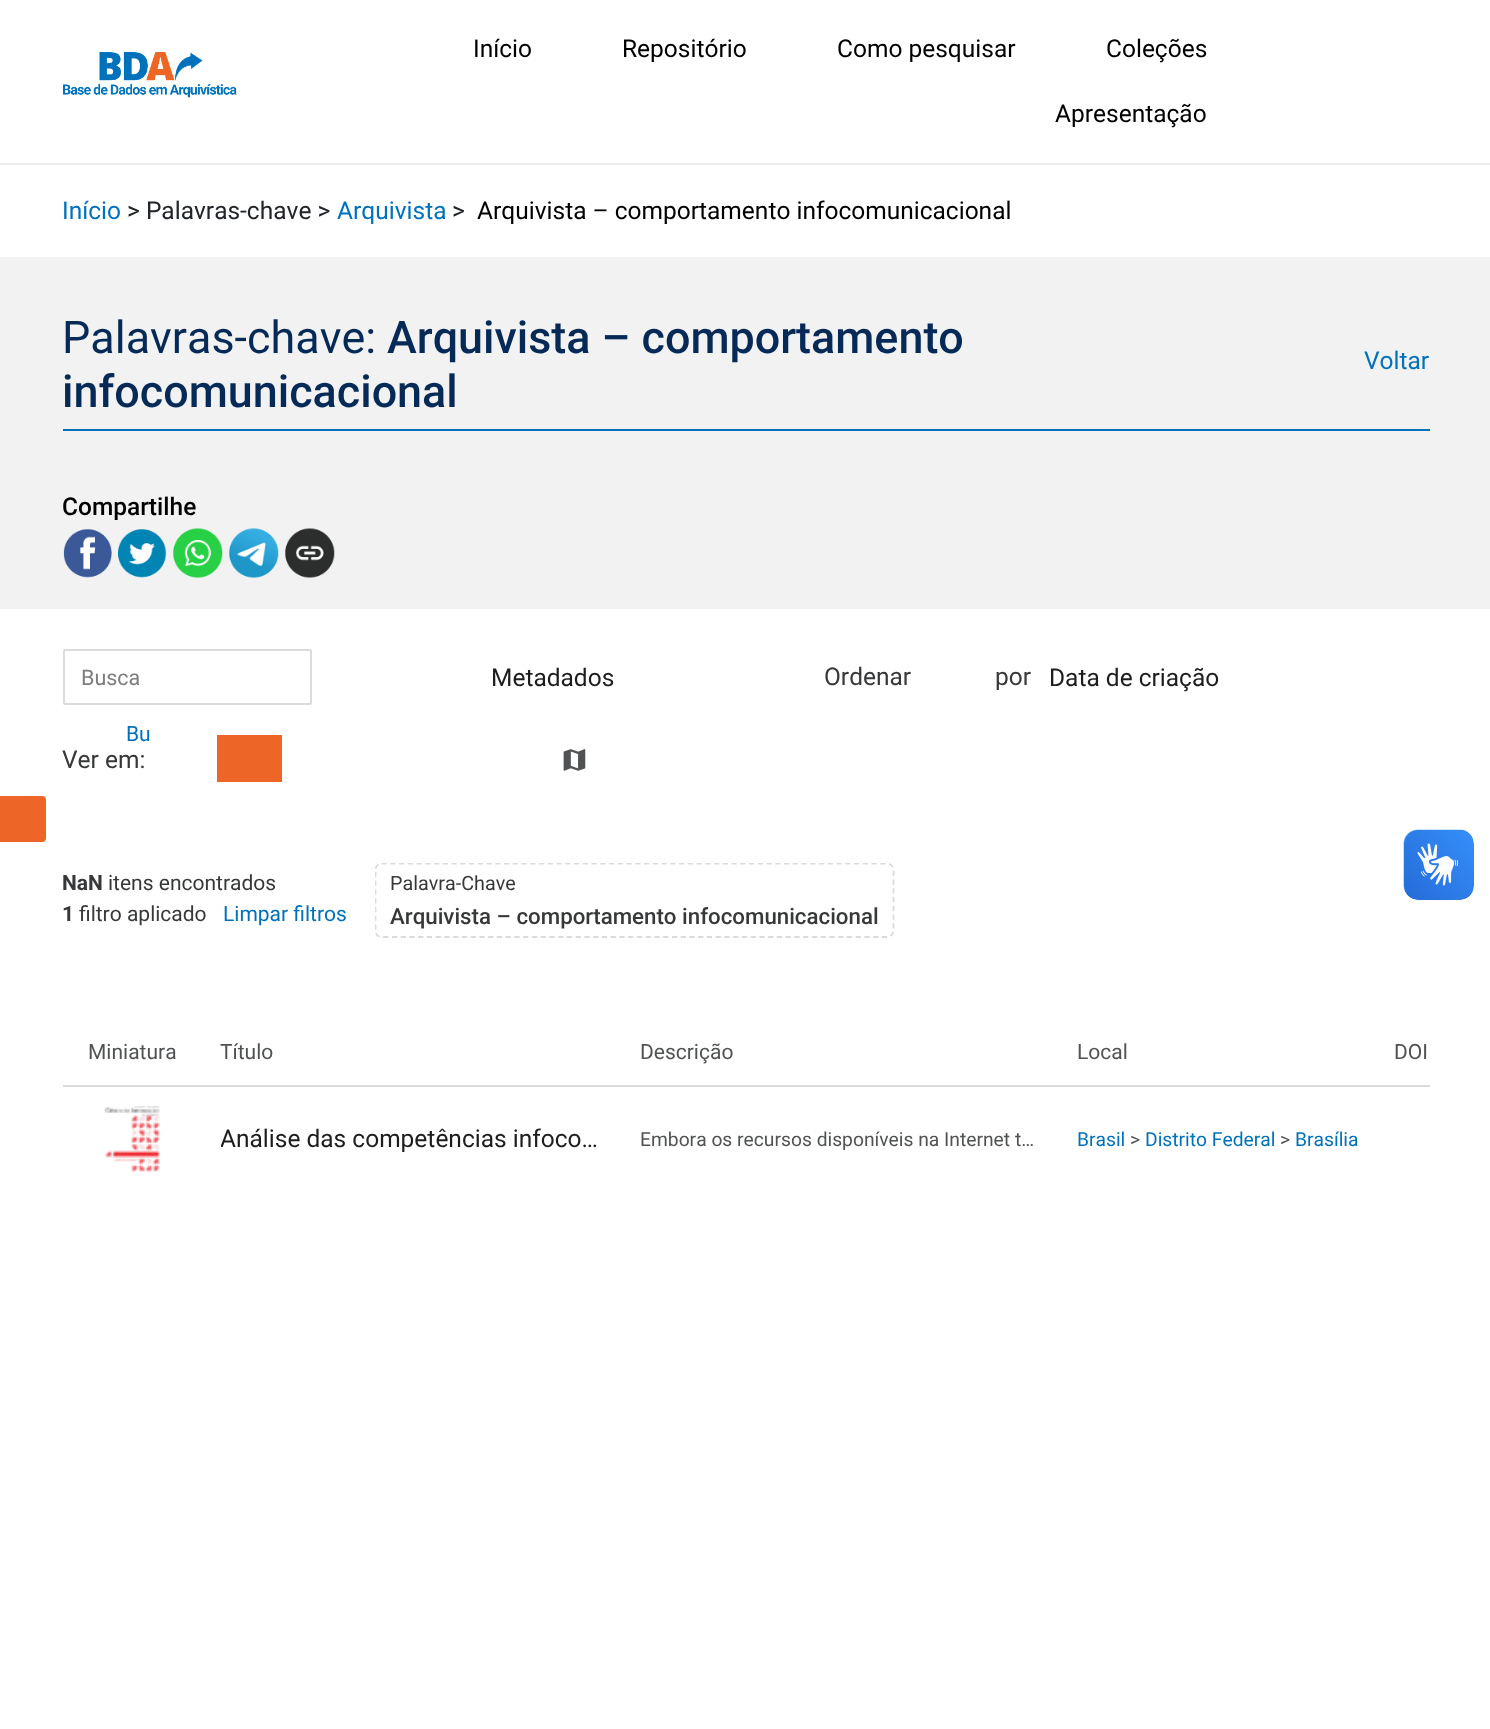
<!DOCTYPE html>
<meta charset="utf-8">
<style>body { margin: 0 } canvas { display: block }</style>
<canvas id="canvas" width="1490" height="1729"></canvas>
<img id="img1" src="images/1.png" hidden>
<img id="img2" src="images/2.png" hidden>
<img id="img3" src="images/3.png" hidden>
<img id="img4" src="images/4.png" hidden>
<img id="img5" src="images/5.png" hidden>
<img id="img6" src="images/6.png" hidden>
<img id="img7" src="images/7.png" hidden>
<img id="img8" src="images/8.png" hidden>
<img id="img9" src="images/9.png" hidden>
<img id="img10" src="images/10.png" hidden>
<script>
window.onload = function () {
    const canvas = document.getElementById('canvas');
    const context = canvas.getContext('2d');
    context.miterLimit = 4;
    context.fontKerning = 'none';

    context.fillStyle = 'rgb(255, 255, 255)';
    context.fillRect(0, 0, 1490, 1729);
    context.fillStyle = 'rgb(237, 237, 237)';
    context.fillRect(0, 163, 1490, 2);
    context.drawImage(document.getElementById('img1'), 63, 52, 174, 46);
    context.fillStyle = 'rgb(242, 242, 242)';
    context.fillRect(0, 257, 1490, 352);
    context.fillStyle = 'rgb(0, 113, 187)';
    context.fillRect(63, 429, 1367, 2);
    context.drawImage(document.getElementById('img2'), 63, 529, 49, 49);
    context.drawImage(document.getElementById('img3'), 118, 529, 49, 49);
    context.drawImage(document.getElementById('img4'), 173, 528, 50, 50);
    context.drawImage(document.getElementById('img5'), 229, 528, 50, 50);
    context.drawImage(document.getElementById('img6'), 285, 528, 50, 50);
    context.beginPath();
    context.roundRect(64, 650, 247, 54, 1);
    context.strokeStyle = 'rgb(219, 219, 219)';
    context.lineWidth = 2;
    context.stroke();
    context.fillStyle = 'rgb(237, 102, 40)';
    context.fillRect(217, 735, 65, 47);
    context.drawImage(document.getElementById('img7'), 563, 749, 23, 22);
    context.beginPath();
    context.roundRect(0, 796, 46, 46, [0, 4, 4, 0]);
    context.fill();
    context.save();
    context.beginPath();
    context.rect(375, 863, 1055, 103);
    context.clip();
    context.beginPath();
    context.moveTo(381.5, 863.5);
    context.lineTo(887, 863.5);
    context.bezierCurveTo(890.5, 863.5, 893.5, 866.5, 893.5, 870);
    context.lineTo(893.5, 931);
    context.bezierCurveTo(893.5, 934.5, 890.5, 937, 887, 937);
    context.lineTo(381.5, 937);
    context.bezierCurveTo(378, 937, 375.5, 934.5, 375.5, 931);
    context.lineTo(375.5, 870);
    context.bezierCurveTo(375.5, 866.5, 378, 863.5, 381.5, 863.5);
    context.closePath();
    context.lineWidth = 1.8;
    context.setLineDash([5.25, 3.5]);
    context.stroke();
    context.restore();
    context.fillStyle = 'rgb(219, 219, 219)';
    context.fillRect(63, 1085, 1367, 2);
    context.drawImage(document.getElementById('img8'), 104, 1106, 56, 67);
    context.drawImage(document.getElementById('img9'), 1403, 829, 71, 71);
    context.drawImage(document.getElementById('img10'), 1404, 830, 70, 70);
    context.font = '24.5px Roboto';
    context.fillStyle = 'rgb(0, 0, 0)';
    context.fillText('Início', 473, 57);
    context.fillText('Repositório', 622, 57);
    context.fillText('Como pesquisar', 837, 57);
    context.fillText('Coleções', 1106, 57);
    context.fillText('Apresentação', 1055, 122);
    context.fillStyle = 'rgb(0, 113, 187)';
    context.fillText('Início', 62, 219);
    context.fillStyle = 'rgb(33, 37, 41)';
    context.fillText('> Palavras-chave >', 127, 219);
    context.fillStyle = 'rgb(0, 113, 187)';
    context.fillText('Arquivista', 337, 219);
    context.fillStyle = 'rgb(33, 37, 41)';
    context.fillText('>', 452, 219);
    context.fillStyle = 'rgb(0, 0, 0)';
    context.fillText('Arquivista – comportamento infocomunicacional', 477, 219);
    context.font = '44.9px Roboto';
    context.fillStyle = 'rgb(6, 42, 87)';
    context.fillText('Palavras-chave:', 62, 353);
    context.font = '500 44.9px Roboto';
    context.fillText('Arquivista – comportamento', 387, 353);
    context.fillText('infocomunicacional', 62, 407);
    context.font = '24.5px Roboto';
    context.fillStyle = 'rgb(0, 113, 187)';
    context.fillText('Voltar', 1364, 369);
    context.font = '500 24.5px Roboto';
    context.fillStyle = 'rgb(0, 0, 0)';
    context.fillText('Compartilhe', 62, 515);
    context.font = '21.5px Roboto';
    context.fillStyle = 'rgb(124, 125, 126)';
    context.fillText('Busca', 81, 685);
    context.font = '21px Roboto';
    context.fillStyle = 'rgb(0, 113, 187)';
    context.fillText('Bu', 126, 741);
    context.font = '24.5px Roboto';
    context.fillStyle = 'rgb(29, 29, 29)';
    context.fillText('Metadados', 491, 686);
    context.fillStyle = 'rgb(55, 56, 57)';
    context.fillText('Ordenar', 824, 685);
    context.fillText('por', 995, 685);
    context.fillStyle = 'rgb(29, 29, 29)';
    context.fillText('Data de criação', 1049, 686);
    context.fillStyle = 'rgb(55, 56, 57)';
    context.fillText('Ver em:', 62, 768);
    context.font = 'bold 21px Roboto';
    context.fillText('NaN', 62, 890);
    context.font = '21px Roboto';
    context.fillText('itens encontrados', 108, 890);
    context.font = 'bold 21px Roboto';
    context.fillText('1', 62, 921);
    context.font = '21px Roboto';
    context.fillText('filtro aplicado', 79, 921);
    context.fillStyle = 'rgb(0, 113, 187)';
    context.fillText('Limpar filtros', 223, 921);
    context.font = '19.75px Roboto';
    context.fillStyle = 'rgb(55, 56, 57)';
    context.fillText('Palavra-Chave', 390, 890);
    context.font = '500 22.3px Roboto';
    context.fillText('Arquivista – comportamento infocomunicacional', 390, 924);
    context.font = '21px Roboto';
    context.fillStyle = 'rgb(80, 82, 83)';
    context.fillText('Miniatura', 88, 1059);
    context.fillText('Título', 220, 1059);
    context.fillText('Descrição', 640, 1059);
    context.fillText('Local', 1077, 1059);
    context.fillText('DOI', 1394, 1059);
    context.save();
    context.beginPath();
    context.rect(221, 1125, 385, 28);
    context.clip();
    context.font = '24.5px Roboto';
    context.fillStyle = 'rgb(29, 29, 29)';
    context.fillText('Análise das competências infoco…', 220, 1147);
    context.restore();
    context.font = '19.25px Roboto';
    context.fillText('Embora os recursos disponíveis na Internet t…', 640, 1146);
    context.fillStyle = 'rgb(0, 113, 187)';
    context.fillText('Brasil', 1077, 1146);
    context.fillStyle = 'rgb(80, 82, 83)';
    context.fillText('>', 1130, 1146);
    context.fillStyle = 'rgb(0, 113, 187)';
    context.fillText('Distrito Federal', 1145, 1146);
    context.fillStyle = 'rgb(80, 82, 83)';
    context.fillText('>', 1280, 1146);
    context.fillStyle = 'rgb(0, 113, 187)';
    context.fillText('Brasília', 1295, 1146);
};
</script>
